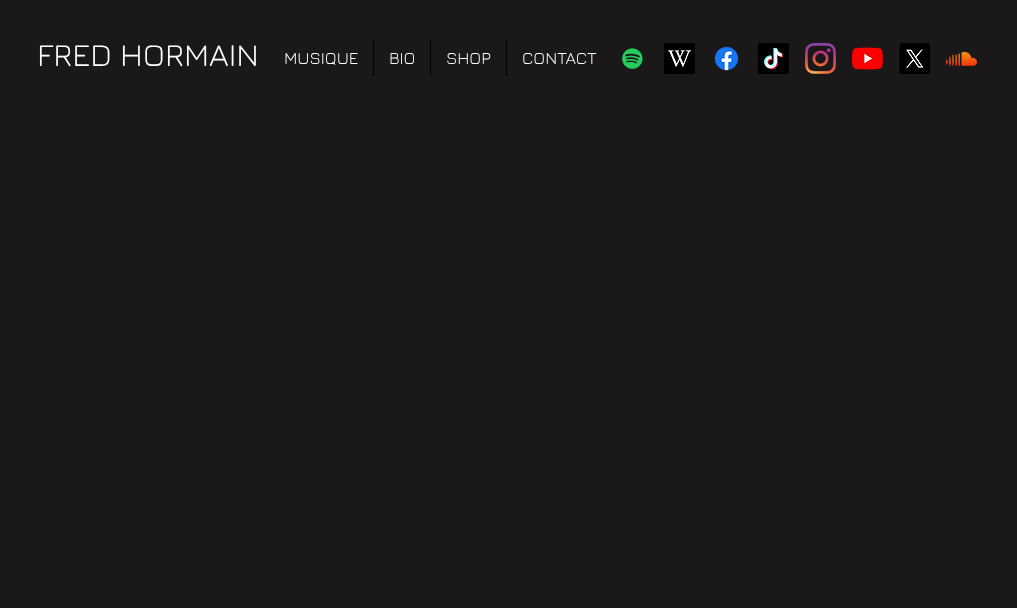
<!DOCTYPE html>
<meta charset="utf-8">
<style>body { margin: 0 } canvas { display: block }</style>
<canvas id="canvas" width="1017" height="608"></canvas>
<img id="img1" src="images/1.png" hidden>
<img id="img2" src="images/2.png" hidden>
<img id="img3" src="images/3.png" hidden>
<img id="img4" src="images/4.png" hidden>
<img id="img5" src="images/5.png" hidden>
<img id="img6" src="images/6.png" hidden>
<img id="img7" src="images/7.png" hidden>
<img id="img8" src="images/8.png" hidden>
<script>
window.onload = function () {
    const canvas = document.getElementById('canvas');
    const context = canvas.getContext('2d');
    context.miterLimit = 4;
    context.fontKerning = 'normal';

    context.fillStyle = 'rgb(26, 24, 24)';
    context.fillRect(0, 0, 1017, 608);
    context.fillStyle = 'rgb(0, 0, 0)';
    context.fillRect(373, 40, 1, 36);
    context.fillRect(430, 40, 1, 36);
    context.fillRect(506, 40, 1, 36);
    context.drawImage(document.getElementById('img1'), 622, 48, 21, 21);
    context.drawImage(document.getElementById('img2'), 664, 43, 31, 31);
    context.drawImage(document.getElementById('img3'), 714, 46, 25, 25);
    context.drawImage(document.getElementById('img4'), 758, 43, 31, 31);
    context.drawImage(document.getElementById('img5'), 805, 43, 31, 31);
    context.drawImage(document.getElementById('img6'), 852, 47, 31, 23);
    context.drawImage(document.getElementById('img7'), 899, 43, 31, 31);
    context.drawImage(document.getElementById('img8'), 946, 51, 31, 15);
    context.font = '32px Jura';
    context.fillStyle = 'rgb(255, 255, 255)';
    context.fillText('FRED HORMAIN', 37, 66);
    context.font = '17px Jura';
    context.fillText('MUSIQUE', 284, 64);
    context.fillText('BIO', 389, 64);
    context.fillText('SHOP', 446, 64);
    context.fillText('CONTACT', 522, 64);
};
</script>
